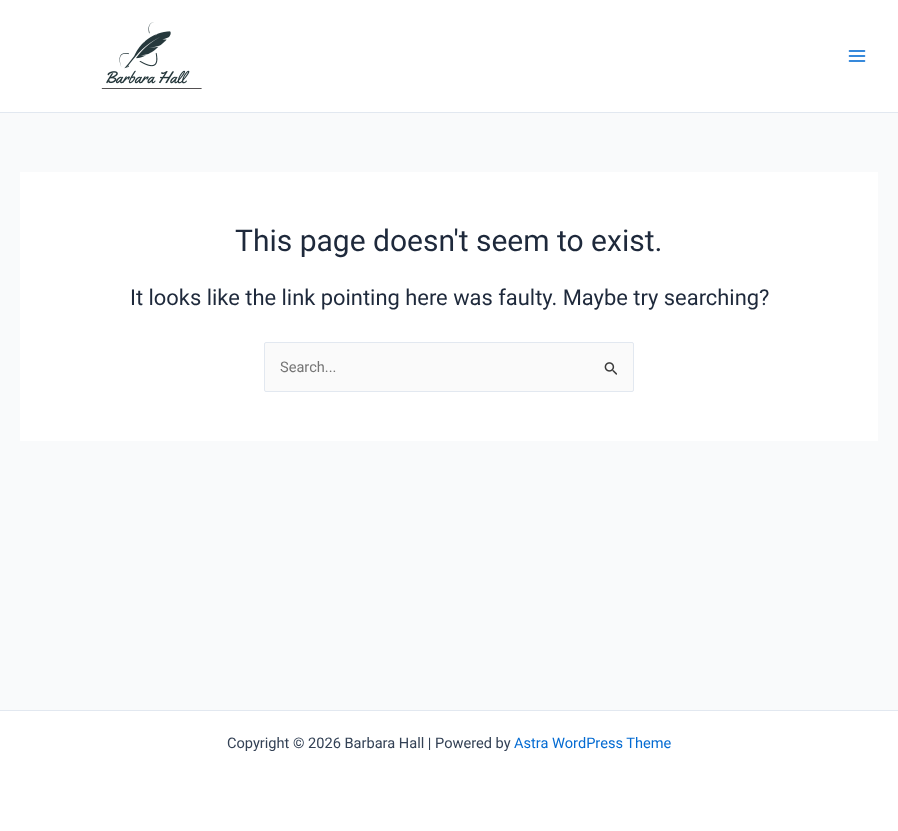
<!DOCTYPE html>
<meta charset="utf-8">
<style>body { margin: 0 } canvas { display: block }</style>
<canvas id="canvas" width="898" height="831"></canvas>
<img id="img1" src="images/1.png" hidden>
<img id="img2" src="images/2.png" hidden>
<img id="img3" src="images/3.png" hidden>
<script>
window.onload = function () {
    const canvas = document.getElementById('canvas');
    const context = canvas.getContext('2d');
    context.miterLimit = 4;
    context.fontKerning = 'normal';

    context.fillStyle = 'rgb(249, 250, 251)';
    context.fillRect(0, 0, 898, 831);
    context.fillStyle = 'rgb(255, 255, 255)';
    context.fillRect(0, 0, 898, 112);
    context.fillStyle = 'rgb(226, 232, 240)';
    context.fillRect(0, 112, 898, 1);
    context.drawImage(document.getElementById('img1'), 101, 22, 101, 67);
    context.drawImage(document.getElementById('img2'), 848, 50, 18, 12);
    context.fillStyle = 'rgb(255, 255, 255)';
    context.fillRect(20, 172, 858, 269);
    context.fillStyle = 'rgb(250, 250, 250)';
    context.beginPath();
    context.roundRect(264.5, 342.5, 369, 49, 1.5);
    context.fill();
    context.strokeStyle = 'rgb(226, 232, 240)';
    context.stroke();
    context.drawImage(document.getElementById('img3'), 604, 362, 13, 13);
    context.fillStyle = 'rgb(255, 255, 255)';
    context.fillRect(0, 711, 898, 120);
    context.fillStyle = 'rgb(226, 232, 240)';
    context.fillRect(0, 710, 898, 1);
    context.font = '30px Roboto';
    context.fillStyle = 'rgb(30, 41, 59)';
    context.fillText('This page doesn\'t seem to exist.', 235, 251);
    context.font = '21.9px Roboto';
    context.fillText('It looks like the link pointing here was faulty. Maybe try searching?', 130, 305);
    context.font = '14.6px Roboto';
    context.fillStyle = 'rgb(117, 117, 117)';
    context.fillText('Search...', 280, 372);
    context.fillStyle = 'rgb(51, 65, 85)';
    context.fillText('Copyright © 2026 Barbara Hall | Powered by', 227, 748);
    context.fillStyle = 'rgb(4, 107, 210)';
    context.fillText('Astra WordPress Theme', 514, 748);
};
</script>
